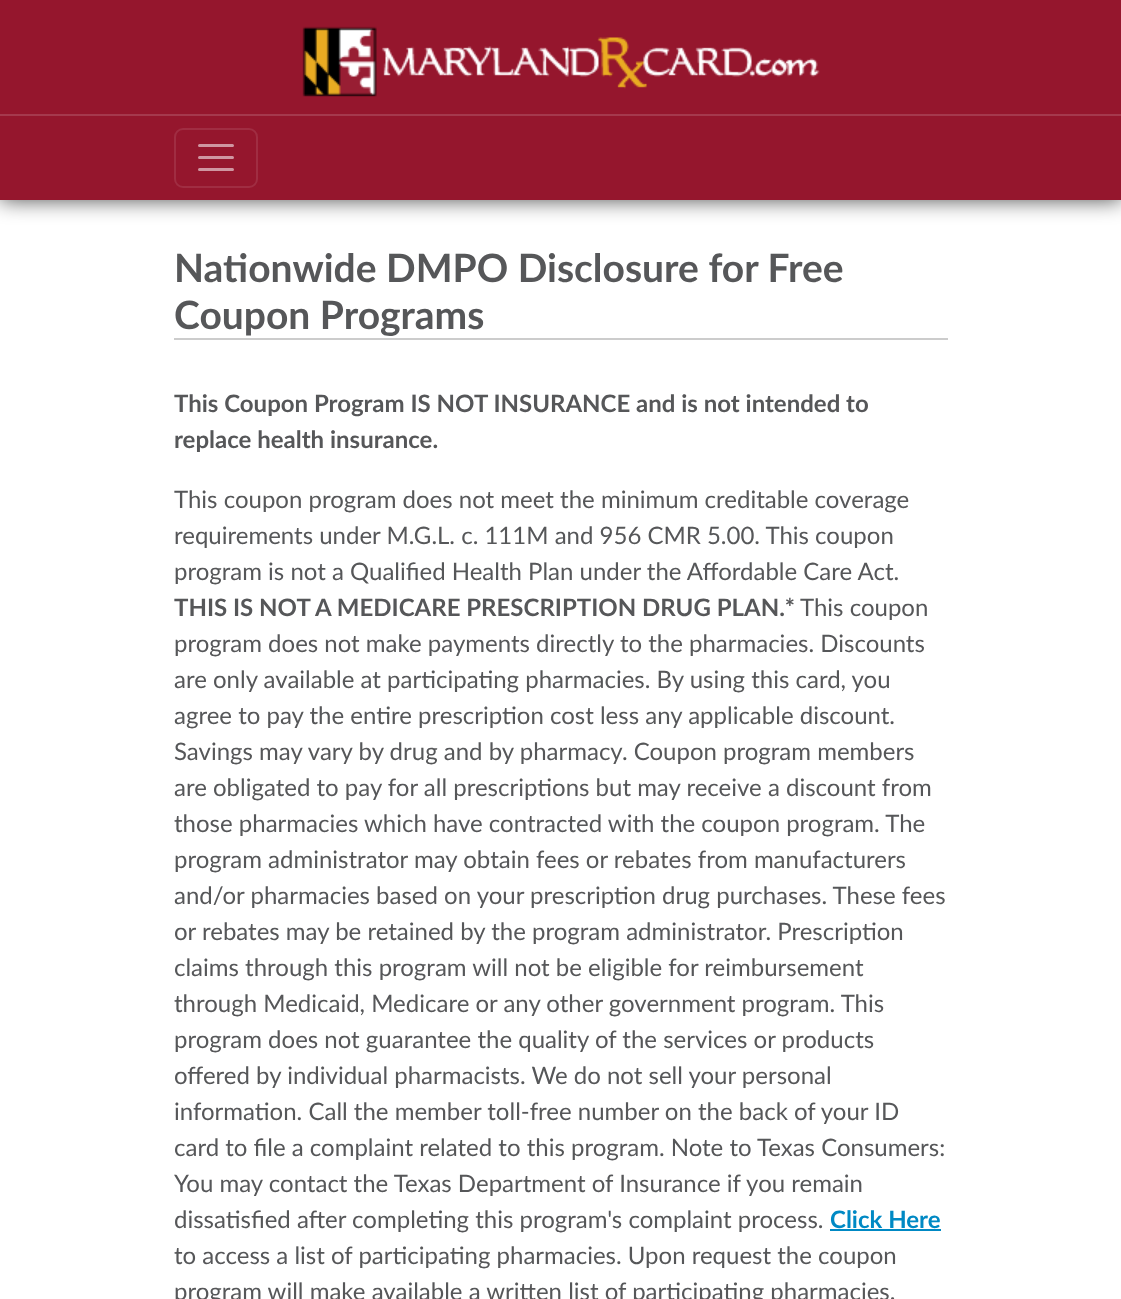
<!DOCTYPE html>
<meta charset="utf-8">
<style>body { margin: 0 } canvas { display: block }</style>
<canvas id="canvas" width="1121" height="1299"></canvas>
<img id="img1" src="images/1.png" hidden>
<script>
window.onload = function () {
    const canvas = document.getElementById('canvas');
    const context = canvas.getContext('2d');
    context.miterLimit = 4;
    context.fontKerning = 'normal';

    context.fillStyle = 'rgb(255, 255, 255)';
    context.fillRect(0, 0, 1121, 1299);
    context.fillStyle = 'rgba(0, 0, 0, 0.7)';
    context.filter = 'blur(10.5px)';
    context.beginPath();
    context.rect(0, 0, 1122, 200);
    context.fill();
    context.filter = 'none';
    context.fillStyle = 'rgb(149, 22, 45)';
    context.fillRect(0, 0, 1121, 200);
    context.drawImage(document.getElementById('img1'), 302, 26, 518, 71);
    context.fillStyle = 'rgb(165, 57, 77)';
    context.fillRect(0, 114, 1121, 2);
    context.beginPath();
    context.roundRect(175, 129, 82, 58, 8);
    context.strokeStyle = 'rgb(160, 45, 66)';
    context.lineWidth = 2;
    context.stroke();
    context.beginPath();
    context.moveTo(199.5, 145.5);
    context.lineTo(232.5, 145.5);
    context.moveTo(199.5, 157.5);
    context.lineTo(232.5, 157.5);
    context.moveTo(199.5, 169.5);
    context.lineTo(232.5, 169.5);
    context.strokeStyle = 'rgb(207, 150, 161)';
    context.lineWidth = 3;
    context.lineCap = 'round';
    context.stroke();
    context.fillStyle = 'rgb(204, 204, 204)';
    context.fillRect(174, 338, 774, 2);
    context.fillStyle = 'rgb(0, 137, 196)';
    context.fillRect(830, 1229, 111, 2);
    context.font = 'bold 39px Lato';
    context.fillStyle = 'rgb(86, 87, 89)';
    context.fillText('Nationwide DMPO Disclosure for Free', 174, 282);
    context.fillText('Coupon Programs', 174, 329);
    context.font = 'bold 24px Lato';
    context.fillText('This Coupon Program IS NOT INSURANCE and is not intended to', 174, 412);
    context.fillText('replace health insurance.', 174, 448);
    context.font = '24px Lato';
    context.fillText('This coupon program does not meet the minimum creditable coverage', 174, 508);
    context.fillText('requirements under M.G.L. c. 111M and 956 CMR 5.00. This coupon', 174, 544);
    context.fillText('program is not a Qualified Health Plan under the Affordable Care Act.', 174, 580);
    context.font = 'bold 24px Lato';
    context.fillText('THIS IS NOT A MEDICARE PRESCRIPTION DRUG PLAN.*', 174, 616);
    context.font = '24px Lato';
    context.fillText('This coupon', 800, 616);
    context.fillText('program does not make payments directly to the pharmacies. Discounts', 174, 652);
    context.fillText('are only available at participating pharmacies. By using this card, you', 174, 688);
    context.fillText('agree to pay the entire prescription cost less any applicable discount.', 174, 724);
    context.fillText('Savings may vary by drug and by pharmacy. Coupon program members', 174, 760);
    context.fillText('are obligated to pay for all prescriptions but may receive a discount from', 174, 796);
    context.fillText('those pharmacies which have contracted with the coupon program. The', 174, 832);
    context.fillText('program administrator may obtain fees or rebates from manufacturers', 174, 868);
    context.fillText('and/or pharmacies based on your prescription drug purchases. These fees', 174, 904);
    context.fillText('or rebates may be retained by the program administrator. Prescription', 174, 940);
    context.fillText('claims through this program will not be eligible for reimbursement', 174, 976);
    context.fillText('through Medicaid, Medicare or any other government program. This', 174, 1012);
    context.fillText('program does not guarantee the quality of the services or products', 174, 1048);
    context.fillText('offered by individual pharmacists. We do not sell your personal', 174, 1084);
    context.fillText('information. Call the member toll-free number on the back of your ID', 174, 1120);
    context.fillText('card to file a complaint related to this program. Note to Texas Consumers:', 174, 1156);
    context.fillText('You may contact the Texas Department of Insurance if you remain', 174, 1192);
    context.fillText('dissatisfied after completing this program\'s complaint process.', 174, 1228);
    context.font = 'bold 24px Lato';
    context.fillStyle = 'rgb(0, 137, 196)';
    context.fillText('Click Here', 830, 1228);
    context.font = '24px Lato';
    context.fillStyle = 'rgb(86, 87, 89)';
    context.fillText('to access a list of participating pharmacies. Upon request the coupon', 174, 1264);
    context.fillText('program will make available a written list of participating pharmacies.', 174, 1300);
};
</script>
